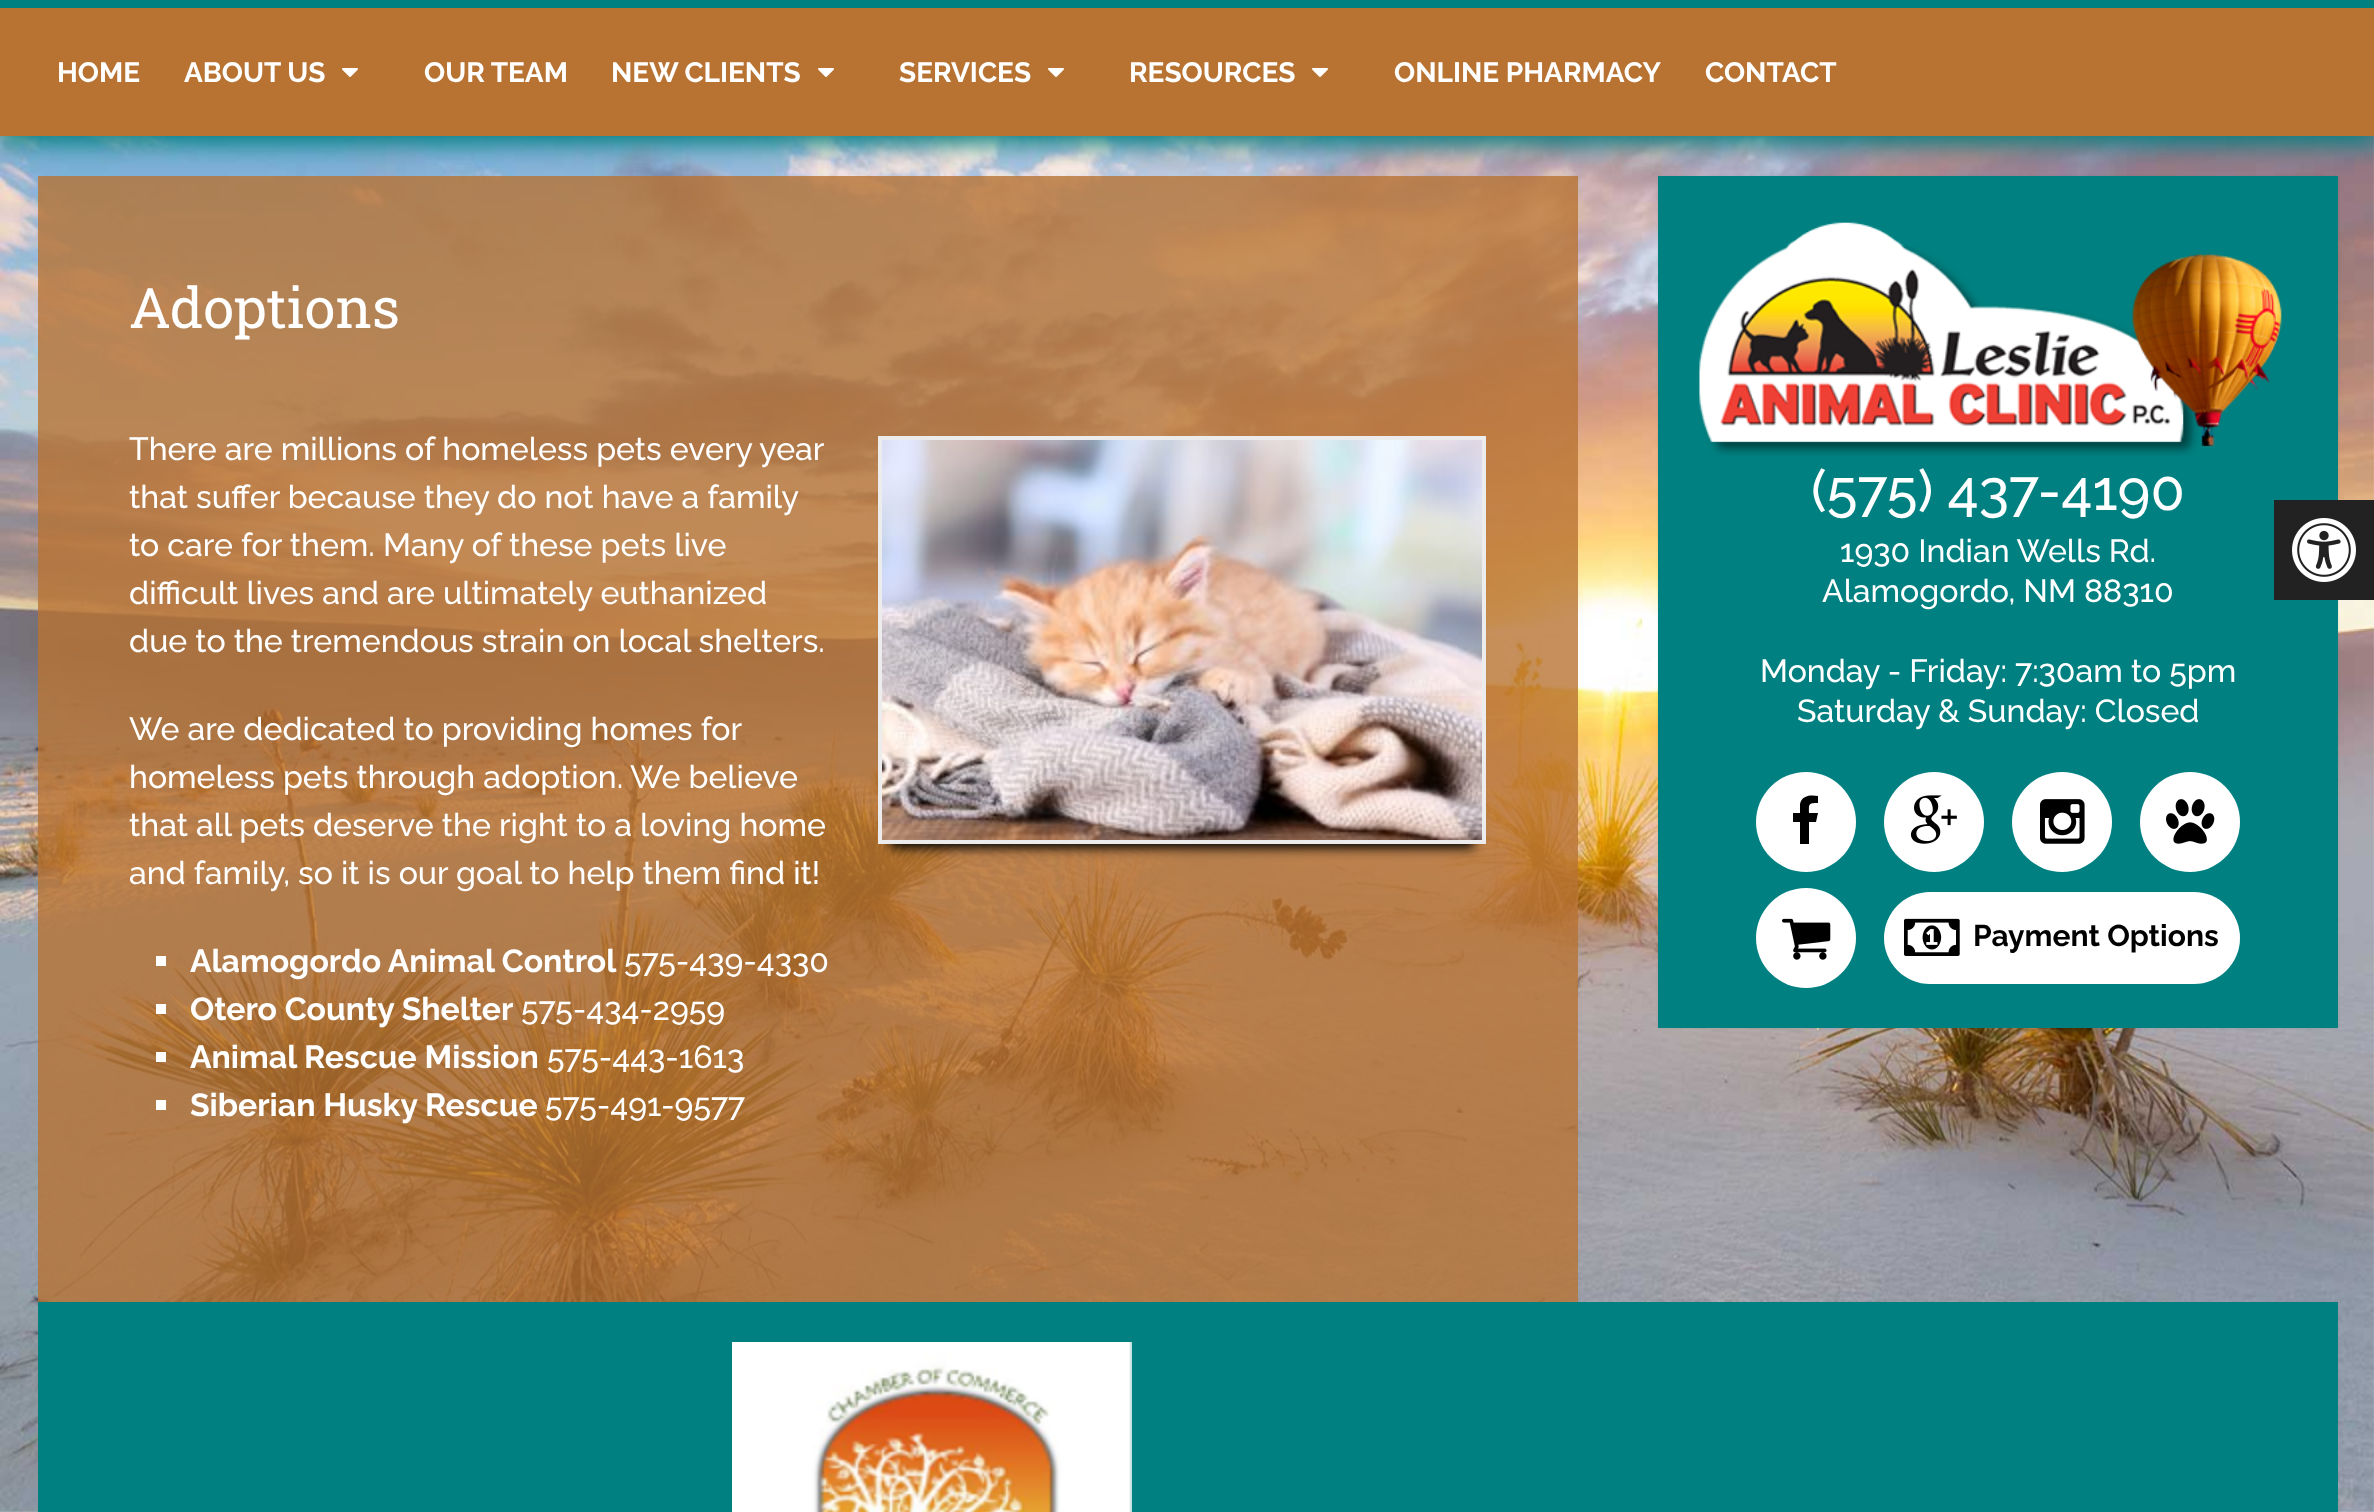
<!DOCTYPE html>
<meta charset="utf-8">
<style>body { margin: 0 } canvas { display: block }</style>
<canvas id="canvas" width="2374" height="1512"></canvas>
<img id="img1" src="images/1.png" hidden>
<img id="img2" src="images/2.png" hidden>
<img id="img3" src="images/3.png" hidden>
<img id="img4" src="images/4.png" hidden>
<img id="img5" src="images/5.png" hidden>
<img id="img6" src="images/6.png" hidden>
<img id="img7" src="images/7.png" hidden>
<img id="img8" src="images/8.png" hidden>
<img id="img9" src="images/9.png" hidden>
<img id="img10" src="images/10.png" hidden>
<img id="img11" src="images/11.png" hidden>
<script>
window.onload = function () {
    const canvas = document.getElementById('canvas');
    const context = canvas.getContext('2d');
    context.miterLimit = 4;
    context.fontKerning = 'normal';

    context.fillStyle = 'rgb(255, 255, 255)';
    context.fillRect(0, 0, 2374, 1512);
    context.drawImage(document.getElementById('img1'), 0, 136, 2374, 1376);
    context.fillStyle = 'rgba(184, 115, 51, 0.8)';
    context.fillRect(38, 176, 1540, 1126);
    context.fillStyle = 'rgba(50, 50, 50, 0.1)';
    context.filter = 'blur(1px)';
    context.beginPath();
    context.rect(1658, 176, 680, 852);
    context.fill();
    context.filter = 'none';
    context.fillStyle = 'rgb(0, 128, 128)';
    context.fillRect(1658, 176, 680, 852);
    context.filter = 'blur(12px)';
    context.beginPath();
    context.rect(-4, 0, 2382, 144);
    context.fill();
    context.filter = 'none';
    context.fillStyle = 'rgb(184, 115, 51)';
    context.fillRect(0, 8, 2374, 128);
    context.fillStyle = 'rgb(0, 128, 128)';
    context.fillRect(0, 0, 2374, 8);
    context.drawImage(document.getElementById('img2'), 342, 68, 16, 9);
    context.drawImage(document.getElementById('img2'), 818, 68, 16, 9);
    context.drawImage(document.getElementById('img2'), 1048, 68, 16, 9);
    context.drawImage(document.getElementById('img2'), 1312, 68, 16, 9);
    context.fillStyle = 'rgb(0, 0, 0)';
    context.filter = 'blur(6px)';
    context.beginPath();
    context.rect(890, 464, 584, 384);
    context.fill();
    context.filter = 'none';
    context.strokeStyle = 'rgb(236, 236, 236)';
    context.lineWidth = 4;
    context.strokeRect(880, 438, 604, 404);
    context.drawImage(document.getElementById('img3'), 882, 440, 600, 400);
    context.fillStyle = 'rgb(255, 255, 255)';
    context.fillRect(156, 956, 10, 10);
    context.fillRect(156, 1004, 10, 10);
    context.fillRect(156, 1052, 10, 10);
    context.fillRect(156, 1100, 10, 10);
    context.drawImage(document.getElementById('img4'), 1699, 222, 583, 234);
    context.beginPath();
    context.arc(1806, 822, 50, 0, 2 * Math.PI);
    context.fill();
    context.fillStyle = 'rgb(0, 0, 0)';
    context.beginPath();
    context.moveTo(1818, 796);
    context.lineTo(1818, 803);
    context.bezierCurveTo(1808, 803, 1809, 804, 1809, 813);
    context.lineTo(1818, 813);
    context.lineTo(1816, 822);
    context.lineTo(1809, 822);
    context.lineTo(1809, 844);
    context.lineTo(1800, 844);
    context.lineTo(1800, 822);
    context.lineTo(1793, 822);
    context.lineTo(1793, 813);
    context.lineTo(1800, 813);
    context.lineTo(1800, 804);
    context.bezierCurveTo(1802, 795, 1811, 795, 1818, 796);
    context.closePath();
    context.fill();
    context.fillStyle = 'rgb(255, 255, 255)';
    context.beginPath();
    context.arc(1934, 822, 50, 0, 2 * Math.PI);
    context.fill();
    context.drawImage(document.getElementById('img5'), 1910, 795, 47, 49);
    context.beginPath();
    context.arc(2062, 822, 50, 0, 2 * Math.PI);
    context.fill();
    context.drawImage(document.getElementById('img6'), 2040, 799, 45, 45);
    context.beginPath();
    context.arc(2190, 822, 50, 0, 2 * Math.PI);
    context.fill();
    context.drawImage(document.getElementById('img7'), 2166, 799, 49, 45);
    context.beginPath();
    context.arc(1806, 938, 50, 0, 2 * Math.PI);
    context.fill();
    context.drawImage(document.getElementById('img8'), 1782, 918, 49, 42);
    context.beginPath();
    context.roundRect(1884, 892, 356, 92, 46);
    context.fill();
    context.drawImage(document.getElementById('img9'), 1904, 918, 56, 38);
    context.fillStyle = 'rgb(0, 128, 128)';
    context.fillRect(38, 1302, 2300, 210);
    context.drawImage(document.getElementById('img10'), 732, 1342, 400, 170);
    context.fillStyle = 'rgb(34, 34, 34)';
    context.fillRect(2274, 500, 100, 100);
    context.drawImage(document.getElementById('img11'), 2292, 518, 64, 64);
    context.font = 'bold 28px Raleway';
    context.fillStyle = 'rgb(255, 255, 255)';
    context.fillText('HOME', 57, 82);
    context.fillText('ABOUT US', 184, 82);
    context.fillText('OUR TEAM', 424, 82);
    context.fillText('NEW CLIENTS', 611, 82);
    context.fillText('SERVICES', 899, 82);
    context.fillText('RESOURCES', 1129, 82);
    context.fillText('ONLINE PHARMACY', 1394, 82);
    context.fillText('CONTACT', 1705, 82);
    context.font = '56px Roboto Slab';
    context.fillText('Adoptions', 129, 328);
    context.font = '500 32px Raleway';
    context.fillText('There are millions of homeless pets every year', 129, 460);
    context.fillText('that suffer because they do not have a family', 129, 508);
    context.fillText('to care for them. Many of these pets live', 129, 556);
    context.fillText('difficult lives and are ultimately euthanized', 129, 604);
    context.fillText('due to the tremendous strain on local shelters.', 129, 652);
    context.fillText('We are dedicated to providing homes for', 129, 740);
    context.fillText('homeless pets through adoption. We believe', 129, 788);
    context.fillText('that all pets deserve the right to a loving home', 129, 836);
    context.fillText('and family, so it is our goal to help them find it!', 129, 884);
    context.font = 'bold 32px Raleway';
    context.fillText('Alamogordo Animal Control', 190, 972);
    context.font = '500 32px Raleway';
    context.fillText('575-439-4330', 624, 972);
    context.font = 'bold 32px Raleway';
    context.fillText('Otero County Shelter', 190, 1020);
    context.font = '500 32px Raleway';
    context.fillText('575-434-2959', 521, 1020);
    context.font = 'bold 32px Raleway';
    context.fillText('Animal Rescue Mission', 190, 1068);
    context.font = '500 32px Raleway';
    context.fillText('575-443-1613', 547, 1068);
    context.font = 'bold 32px Raleway';
    context.fillText('Siberian Husky Rescue', 190, 1116);
    context.font = '500 32px Raleway';
    context.fillText('575-491-9577', 545, 1116);
    context.font = '500 56px Raleway';
    context.fillText('(575) 437-4190', 1811, 510);
    context.font = '500 32px Raleway';
    context.fillText('1930 Indian Wells Rd.', 1840, 562);
    context.fillText('Alamogordo, NM 88310', 1822, 602);
    context.fillText('Monday - Friday: 7:30am to 5pm', 1760, 682);
    context.fillText('Saturday & Sunday: Closed', 1797, 722);
    context.font = 'bold 30px Raleway';
    context.fillStyle = 'rgb(0, 0, 0)';
    context.fillText('Payment Options', 1973, 946);
};
</script>
